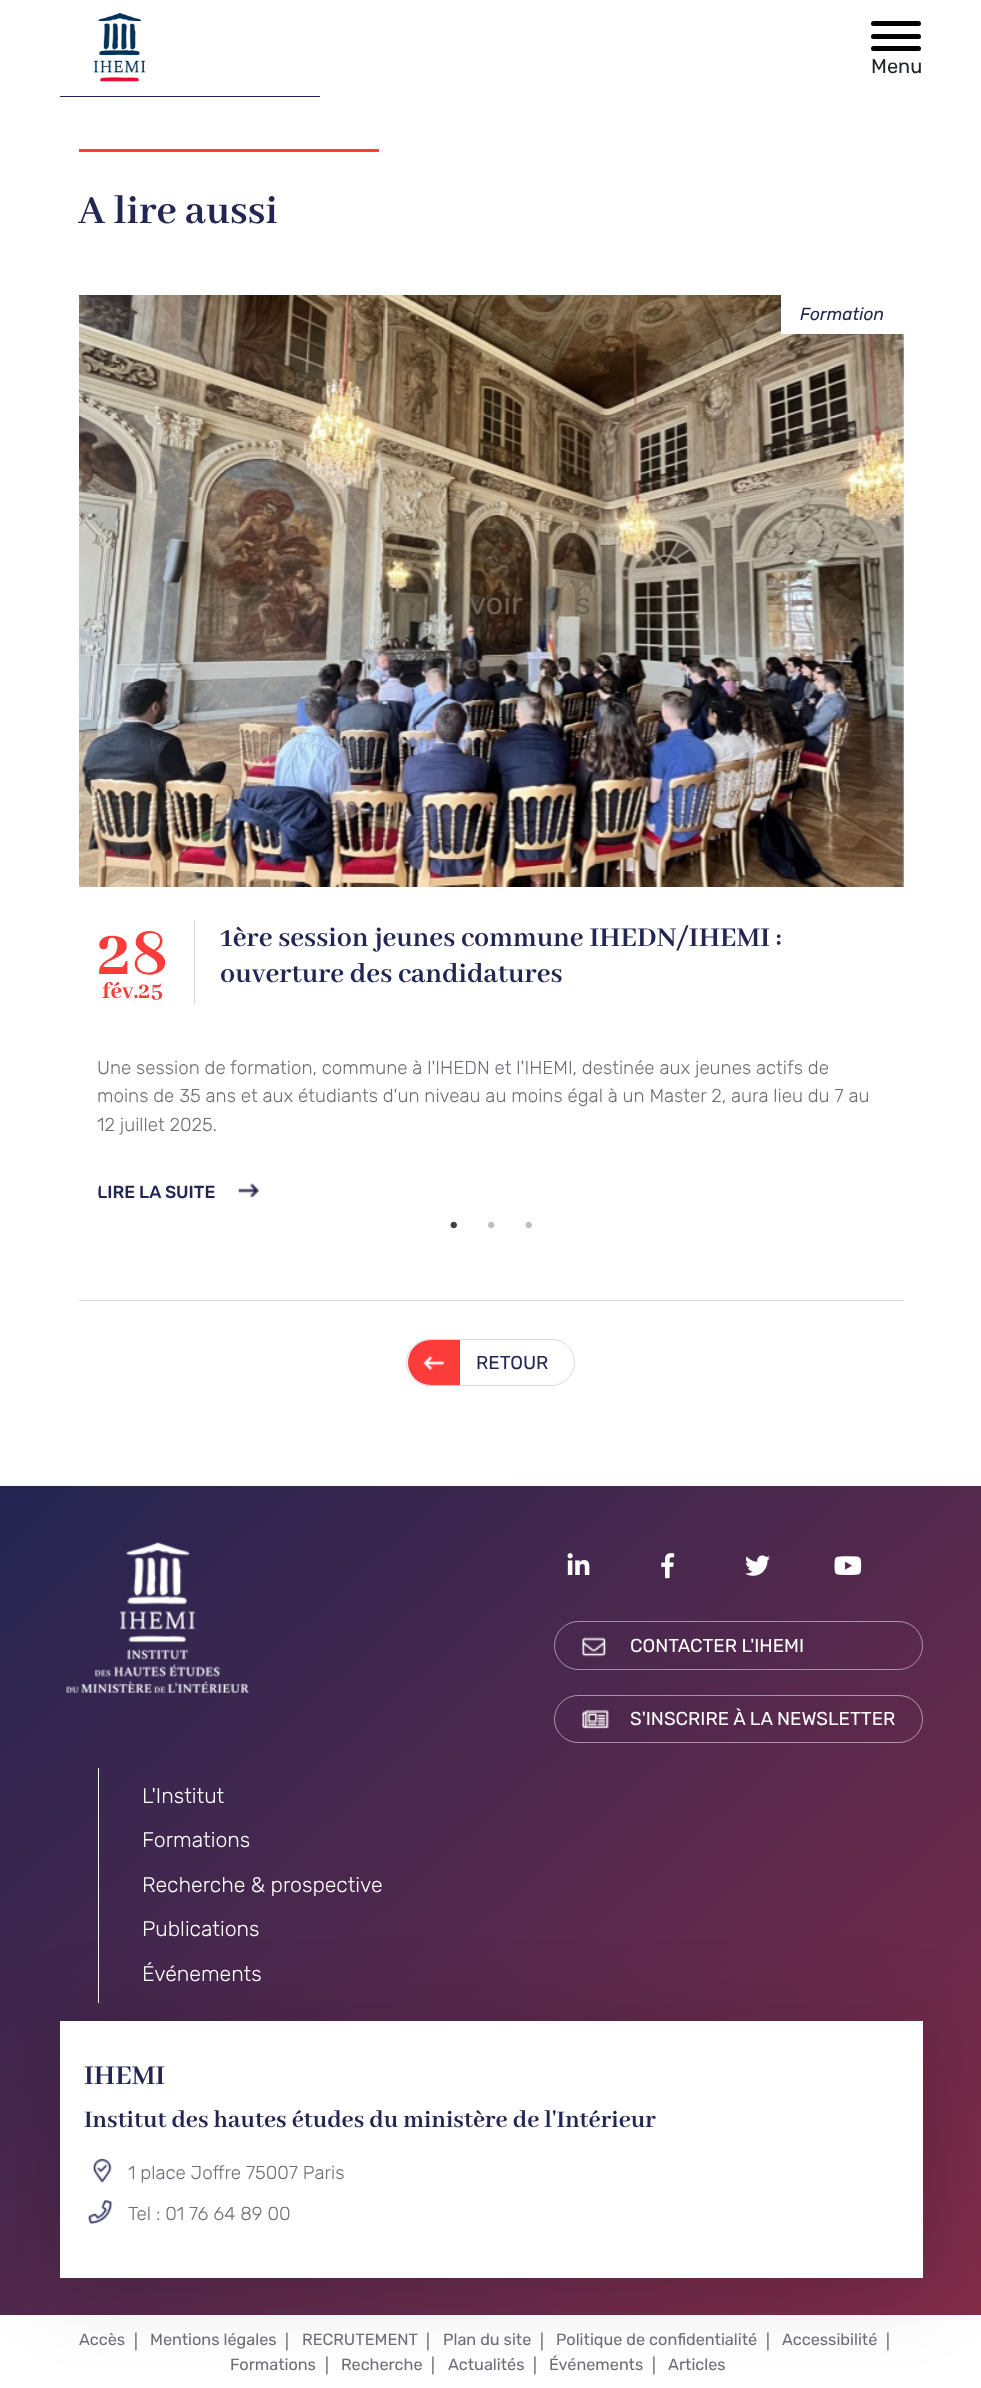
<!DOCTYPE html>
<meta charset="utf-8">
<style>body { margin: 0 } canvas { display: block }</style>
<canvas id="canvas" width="981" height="2388"></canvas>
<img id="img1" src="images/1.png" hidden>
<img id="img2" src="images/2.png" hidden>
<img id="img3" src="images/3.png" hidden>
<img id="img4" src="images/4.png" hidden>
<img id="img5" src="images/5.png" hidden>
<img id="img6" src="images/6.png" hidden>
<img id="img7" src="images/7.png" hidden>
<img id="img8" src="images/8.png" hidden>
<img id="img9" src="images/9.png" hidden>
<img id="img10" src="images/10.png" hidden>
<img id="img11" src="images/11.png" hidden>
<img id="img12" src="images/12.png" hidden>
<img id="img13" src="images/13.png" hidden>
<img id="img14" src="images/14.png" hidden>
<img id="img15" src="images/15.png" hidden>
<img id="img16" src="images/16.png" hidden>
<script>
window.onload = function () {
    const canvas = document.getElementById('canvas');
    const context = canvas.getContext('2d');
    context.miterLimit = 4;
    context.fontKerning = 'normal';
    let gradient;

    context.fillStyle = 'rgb(255, 255, 255)';
    context.fillRect(0, 0, 981, 2388);
    context.drawImage(document.getElementById('img1'), 93, 13, 53, 69);
    context.fillStyle = 'rgb(0, 0, 0)';
    context.beginPath();
    context.roundRect(871, 46, 50, 5, 2.5);
    context.fill();
    context.beginPath();
    context.roundRect(871, 21, 50, 5, 2.5);
    context.fill();
    context.beginPath();
    context.roundRect(871, 34, 50, 5, 2.5);
    context.fill();
    context.fillStyle = 'rgb(35, 37, 82)';
    context.fillRect(60, 96, 260, 1);
    context.fillStyle = 'rgb(252, 60, 58)';
    context.fillRect(79, 149, 300, 3);
    context.drawImage(document.getElementById('img2'), 79, 295, 825, 592);
    context.fillStyle = 'rgb(255, 255, 255)';
    context.fillRect(781, 295, 123, 39);
    context.fillStyle = 'rgb(216, 217, 226)';
    context.fillRect(194, 920, 1, 84);
    context.drawImage(document.getElementById('img3'), 238, 1183, 21, 15);
    context.drawImage(document.getElementById('img4'), 450, 1221, 7, 8);
    context.drawImage(document.getElementById('img5'), 488, 1221, 7, 8);
    context.drawImage(document.getElementById('img6'), 525, 1221, 7, 8);
    context.fillRect(79, 1300, 825, 1);
    context.beginPath();
    context.roundRect(406.5, 1339.5, 168, 46, 23);
    context.strokeStyle = 'rgb(216, 217, 226)';
    context.stroke();
    context.fillStyle = 'rgb(252, 60, 58)';
    context.beginPath();
    context.roundRect(408, 1340, 52, 45, [22.5, 0, 0, 22.5]);
    context.fill();
    context.drawImage(document.getElementById('img7'), 423, 1356, 21, 15);
    gradient = context.createLinearGradient(65, 1428, 916, 2373);
    gradient.addColorStop(0, 'rgb(35, 37, 82)');
    gradient.addColorStop(1, 'rgb(130, 44, 72)');
    context.fillStyle = gradient;
    context.fillRect(0, 1486, 981, 829);
    context.drawImage(document.getElementById('img8'), 66, 1542, 183, 151);
    context.drawImage(document.getElementById('img9'), 567, 1553, 23, 22);
    context.drawImage(document.getElementById('img10'), 661, 1553, 14, 26);
    context.drawImage(document.getElementById('img11'), 745, 1555, 25, 21);
    context.drawImage(document.getElementById('img12'), 834, 1556, 28, 19);
    context.beginPath();
    context.roundRect(554.5, 1621.5, 368, 48, 24);
    context.strokeStyle = 'rgba(255, 255, 255, 0.5)';
    context.stroke();
    context.drawImage(document.getElementById('img13'), 582, 1637, 25, 20);
    context.beginPath();
    context.roundRect(554.5, 1695.5, 368, 47, 23.5);
    context.stroke();
    context.drawImage(document.getElementById('img14'), 582, 1710, 27, 19);
    context.fillStyle = 'rgb(255, 255, 255)';
    context.fillRect(98, 1768, 1, 235);
    context.fillStyle = 'rgba(0, 0, 0, 0.15)';
    context.filter = 'blur(40.5px)';
    context.beginPath();
    context.rect(54, 2021, 875, 269);
    context.fill();
    context.filter = 'none';
    context.fillStyle = 'rgb(255, 255, 255)';
    context.fillRect(60, 2021, 863, 257);
    context.drawImage(document.getElementById('img15'), 93, 2159, 19, 24);
    context.drawImage(document.getElementById('img16'), 88, 2200, 25, 24);
    context.font = '20px Rubik';
    context.fillStyle = 'rgb(33, 37, 41)';
    context.fillText('Menu', 871, 73);
    context.font = 'bold 43.75px Abhaya Libre';
    context.fillStyle = 'rgb(35, 37, 82)';
    context.fillText('A lire aussi', 78, 223);
    context.font = 'italic 300 17.5px Rubik';
    context.fillText('Formation', 800, 320);
    context.font = '31px Rubik';
    context.fillStyle = 'rgb(108, 97, 82)';
    context.fillText('voir', 469, 614);
    context.fillText('s', 575, 614);
    context.font = '800 71px Abhaya Libre ExtraBold';
    context.fillStyle = 'rgb(252, 60, 58)';
    context.fillText('28', 97, 974);
    context.font = '800 25px Abhaya Libre ExtraBold';
    context.fillText('fév.25', 102, 998);
    context.font = 'bold 30px Abhaya Libre';
    context.fillStyle = 'rgb(35, 37, 82)';
    context.fillText('1ère session jeunes commune IHEDN/IHEMI :', 220, 946);
    context.fillText('ouverture des candidatures', 220, 982);
    context.font = '300 18.75px Rubik';
    context.fillStyle = 'rgb(109, 109, 117)';
    context.fillText('Une session de formation, commune à l\'IHEDN et l\'IHEMI, destinée aux jeunes actifs de', 97, 1074);
    context.fillText('moins de 35 ans et aux étudiants d\'un niveau au moins égal à un Master 2, aura lieu du 7 au', 97, 1102);
    context.fillText('12 juillet 2025.', 97, 1131);
    context.save();
    context.beginPath();
    context.roundRect(98, 1179, 186, 26, 13);
    context.clip();
    context.font = '500 17.5px Rubik';
    context.fillStyle = 'rgb(35, 37, 82)';
    context.fillText('LIRE LA SUITE', 97, 1198);
    context.restore();
    context.font = '18.75px Rubik';
    context.fillStyle = 'rgb(35, 37, 82)';
    context.fillText('RETOUR', 476, 1369);
    context.fillStyle = 'rgb(255, 255, 255)';
    context.fillText('CONTACTER L\'IHEMI', 630, 1652);
    context.fillText('S\'INSCRIRE À LA NEWSLETTER', 630, 1725);
    context.font = '300 21.25px Rubik';
    context.fillText('L\'Institut', 142, 1803);
    context.fillText('Formations', 142, 1847);
    context.fillText('Recherche & prospective', 142, 1892);
    context.fillText('Publications', 142, 1936);
    context.fillText('Événements', 142, 1981);
    context.font = 'bold 30px Abhaya Libre';
    context.fillStyle = 'rgb(35, 37, 82)';
    context.fillText('IHEMI', 84, 2084);
    context.font = 'bold 26.25px Abhaya Libre';
    context.fillText('Institut des hautes études du ministère de l\'Intérieur', 84, 2127);
    context.font = '300 18.75px Rubik';
    context.fillStyle = 'rgb(109, 109, 117)';
    context.fillText('1 place Joffre 75007 Paris', 128, 2179);
    context.fillText('Tel : 01 76 64 89 00', 128, 2220);
    context.font = '16.25px Rubik';
    context.fillText('Accès', 79, 2345);
    context.fillText('|', 134, 2347);
    context.fillText('Mentions légales', 150, 2345);
    context.fillText('|', 285, 2347);
    context.fillText('RECRUTEMENT', 302, 2345);
    context.fillText('|', 426, 2347);
    context.fillText('Plan du site', 443, 2345);
    context.fillText('|', 540, 2347);
    context.fillText('Politique de confidentialité', 556, 2345);
    context.fillText('|', 766, 2347);
    context.fillText('Accessibilité', 782, 2345);
    context.fillText('|', 886, 2347);
    context.fillText('Formations', 230, 2370);
    context.fillText('|', 325, 2371);
    context.fillText('Recherche', 341, 2370);
    context.fillText('|', 431, 2371);
    context.fillText('Actualités', 448, 2370);
    context.fillText('|', 533, 2371);
    context.fillText('Événements', 549, 2370);
    context.fillText('|', 652, 2371);
    context.fillText('Articles', 668, 2370);
};
</script>
